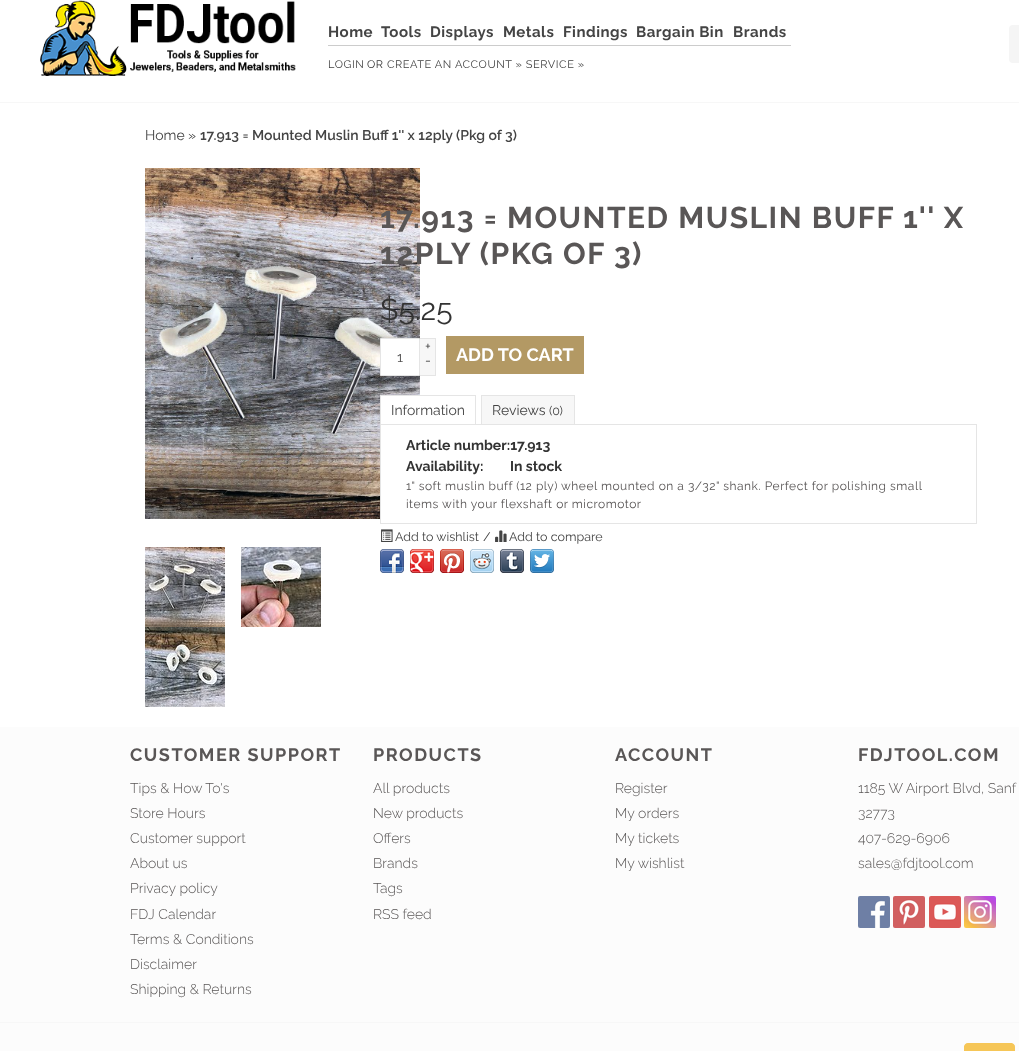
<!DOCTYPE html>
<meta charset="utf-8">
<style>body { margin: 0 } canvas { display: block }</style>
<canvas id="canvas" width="1019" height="1051"></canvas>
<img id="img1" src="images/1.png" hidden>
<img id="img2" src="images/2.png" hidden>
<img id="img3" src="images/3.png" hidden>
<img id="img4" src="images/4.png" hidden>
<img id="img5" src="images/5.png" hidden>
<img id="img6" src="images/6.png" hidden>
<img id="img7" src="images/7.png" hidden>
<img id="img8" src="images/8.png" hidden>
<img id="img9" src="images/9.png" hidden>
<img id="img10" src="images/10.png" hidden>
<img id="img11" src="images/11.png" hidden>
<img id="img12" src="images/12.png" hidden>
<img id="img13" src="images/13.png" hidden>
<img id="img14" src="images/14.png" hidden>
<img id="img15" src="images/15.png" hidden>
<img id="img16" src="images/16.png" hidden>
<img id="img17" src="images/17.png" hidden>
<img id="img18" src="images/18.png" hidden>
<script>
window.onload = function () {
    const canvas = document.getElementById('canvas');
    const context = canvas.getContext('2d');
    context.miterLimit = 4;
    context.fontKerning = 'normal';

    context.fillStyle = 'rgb(255, 255, 255)';
    context.fillRect(0, 0, 1019, 1051);
    context.fillStyle = 'rgb(247, 247, 247)';
    context.fillRect(0, 102, 1019, 1);
    context.drawImage(document.getElementById('img1'), 40, 0, 256, 76);
    context.fillStyle = 'rgb(204, 204, 204)';
    context.fillRect(328, 45, 463, 1);
    context.fillStyle = 'rgb(245, 245, 245)';
    context.beginPath();
    context.roundRect(1009, 25, 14, 38, 4);
    context.fill();
    context.drawImage(document.getElementById('img2'), 145, 168, 275, 351);
    context.drawImage(document.getElementById('img3'), 145, 547, 80, 80);
    context.drawImage(document.getElementById('img4'), 241, 547, 80, 80);
    context.drawImage(document.getElementById('img5'), 145, 627, 80, 80);
    context.fillStyle = 'rgb(255, 255, 255)';
    context.beginPath();
    context.rect(380.5, 338.5, 39, 37);
    context.fill();
    context.strokeStyle = 'rgb(229, 229, 229)';
    context.stroke();
    context.fillStyle = 'rgb(247, 247, 247)';
    context.fillRect(420, 339, 15, 36);
    context.fillStyle = 'rgb(229, 229, 229)';
    context.fillRect(420, 338, 16, 1);
    context.fillRect(435, 338, 1, 38);
    context.fillRect(420, 375, 16, 1);
    context.fillStyle = 'rgb(179, 153, 100)';
    context.fillRect(446, 336, 138, 38);
    context.fillStyle = 'rgb(255, 255, 255)';
    context.fillRect(381, 396, 39, 28);
    context.fillStyle = 'rgb(229, 229, 229)';
    context.fillRect(380, 395, 96, 1);
    context.fillRect(475, 395, 1, 30);
    context.fillRect(380, 395, 1, 30);
    context.fillStyle = 'rgb(247, 247, 247)';
    context.fillRect(482, 396, 92, 28);
    context.fillStyle = 'rgb(229, 229, 229)';
    context.fillRect(481, 395, 94, 1);
    context.fillRect(574, 395, 1, 30);
    context.fillRect(481, 395, 1, 30);
    context.fillStyle = 'rgb(255, 255, 255)';
    context.fillRect(381, 425, 39, 94);
    context.strokeRect(380.5, 424.5, 596, 99);
    context.drawImage(document.getElementById('img6'), 381, 529, 12, 13);
    context.drawImage(document.getElementById('img7'), 495, 530, 12, 12);
    context.drawImage(document.getElementById('img8'), 380, 549, 24, 24);
    context.drawImage(document.getElementById('img9'), 410, 549, 24, 24);
    context.drawImage(document.getElementById('img10'), 440, 549, 24, 24);
    context.drawImage(document.getElementById('img11'), 470, 549, 24, 24);
    context.drawImage(document.getElementById('img12'), 500, 549, 24, 24);
    context.drawImage(document.getElementById('img13'), 530, 549, 24, 24);
    context.fillStyle = 'rgb(252, 252, 252)';
    context.fillRect(0, 727, 1019, 324);
    context.drawImage(document.getElementById('img14'), 858, 896, 32, 32);
    context.drawImage(document.getElementById('img15'), 893, 896, 32, 32);
    context.drawImage(document.getElementById('img16'), 929, 896, 32, 32);
    context.drawImage(document.getElementById('img17'), 964, 896, 32, 32);
    context.fillStyle = 'rgb(247, 247, 247)';
    context.fillRect(0, 1022, 1019, 1);
    context.drawImage(document.getElementById('img18'), 964, 1043, 51, 8);
    context.letterSpacing = '0.5px';
    context.font = 'bold 15px Raleway';
    context.fillStyle = 'rgb(68, 68, 68)';
    context.fillText('Home', 328, 37);
    context.fillText('Tools', 381, 37);
    context.fillText('Displays', 430, 37);
    context.fillText('Metals', 503, 37);
    context.fillText('Findings', 563, 37);
    context.fillText('Bargain Bin', 636, 37);
    context.fillText('Brands', 733, 37);
    context.letterSpacing = '0.55px';
    context.font = '11px Raleway';
    context.fillText('LOGIN', 328, 68);
    context.fillStyle = 'rgb(51, 51, 51)';
    context.fillText('OR', 367, 68);
    context.fillStyle = 'rgb(68, 68, 68)';
    context.fillText('CREATE AN ACCOUNT » SERVICE »', 387, 68);
    context.letterSpacing = '0px';
    context.font = '14px Raleway';
    context.fillText('Home', 145, 140);
    context.fillStyle = 'rgb(51, 51, 51)';
    context.fillText('»', 188, 140);
    context.font = '600 14px Raleway';
    context.fillStyle = 'rgb(68, 68, 68)';
    context.fillText('17.913 = Mounted Muslin Buff 1\'\' x 12ply (Pkg of 3)', 200, 140);
    context.letterSpacing = '1.5px';
    context.font = 'bold 30px Raleway';
    context.fillStyle = 'rgb(89, 86, 86)';
    context.fillText('17.913 = MOUNTED MUSLIN BUFF 1\'\' X', 380, 228);
    context.fillText('12PLY (PKG OF 3)', 380, 264);
    context.letterSpacing = '0px';
    context.font = '30px Raleway';
    context.fillStyle = 'rgb(51, 51, 51)';
    context.fillText('$5.25', 380, 320);
    context.font = '14px Raleway';
    context.fillStyle = 'rgb(81, 80, 80)';
    context.fillText('1', 397, 362);
    context.fillStyle = 'rgb(68, 68, 68)';
    context.fillText('+', 425, 351);
    context.fillText('-', 425, 365);
    context.font = 'bold 18px Raleway';
    context.fillStyle = 'rgb(255, 255, 255)';
    context.fillText('ADD TO CART', 456, 361);
    context.font = '14px Raleway';
    context.fillStyle = 'rgb(68, 68, 68)';
    context.fillText('Information', 391, 415);
    context.fillText('Reviews', 492, 415);
    context.font = '12.5px Raleway';
    context.fillText('(0)', 549, 415);
    context.font = 'bold 14px Raleway';
    context.fillStyle = 'rgb(51, 51, 51)';
    context.fillText('Article number:17.913', 406, 450);
    context.fillText('Availability:', 406, 471);
    context.fillText('In stock', 510, 471);
    context.letterSpacing = '0.5px';
    context.font = '12px Raleway';
    context.fillStyle = 'rgb(89, 86, 86)';
    context.fillText('1" soft muslin buff (12 ply) wheel mounted on a 3/32" shank. Perfect for polishing small', 406, 490);
    context.fillText('items with your flexshaft or micromotor', 406, 508);
    context.letterSpacing = '0px';
    context.font = '12.5px Raleway';
    context.fillStyle = 'rgb(68, 68, 68)';
    context.fillText('Add to wishlist', 395, 541);
    context.fillStyle = 'rgb(51, 51, 51)';
    context.fillText('/', 483, 541);
    context.fillStyle = 'rgb(68, 68, 68)';
    context.fillText('Add to compare', 509, 541);
    context.letterSpacing = '1.5px';
    context.font = 'bold 18px Raleway';
    context.fillStyle = 'rgb(89, 86, 86)';
    context.fillText('CUSTOMER SUPPORT', 130, 761);
    context.letterSpacing = '0px';
    context.font = '300 14px Raleway';
    context.fillText('Tips & How To\'s', 130, 793);
    context.fillText('Store Hours', 130, 818);
    context.fillText('Customer support', 130, 843);
    context.fillText('About us', 130, 868);
    context.fillText('Privacy policy', 130, 893);
    context.fillText('FDJ Calendar', 130, 919);
    context.fillText('Terms & Conditions', 130, 944);
    context.fillText('Disclaimer', 130, 969);
    context.fillText('Shipping & Returns', 130, 994);
    context.letterSpacing = '1.5px';
    context.font = 'bold 18px Raleway';
    context.fillText('PRODUCTS', 373, 761);
    context.letterSpacing = '0px';
    context.font = '300 14px Raleway';
    context.fillText('All products', 373, 793);
    context.fillText('New products', 373, 818);
    context.fillText('Offers', 373, 843);
    context.fillText('Brands', 373, 868);
    context.fillText('Tags', 373, 893);
    context.fillText('RSS feed', 373, 919);
    context.letterSpacing = '1.5px';
    context.font = 'bold 18px Raleway';
    context.fillText('ACCOUNT', 615, 761);
    context.letterSpacing = '0px';
    context.font = '300 14px Raleway';
    context.fillText('Register', 615, 793);
    context.fillText('My orders', 615, 818);
    context.fillText('My tickets', 615, 843);
    context.fillText('My wishlist', 615, 868);
    context.letterSpacing = '1.5px';
    context.font = 'bold 18px Raleway';
    context.fillText('FDJTOOL.COM', 858, 761);
    context.letterSpacing = '0px';
    context.font = '300 14px Raleway';
    context.fillText('1185 W Airport Blvd, Sanf', 858, 793);
    context.fillText('32773', 858, 818);
    context.fillText('407-629-6906', 858, 843);
    context.fillText('sales@fdjtool.com', 858, 868);
};
</script>
